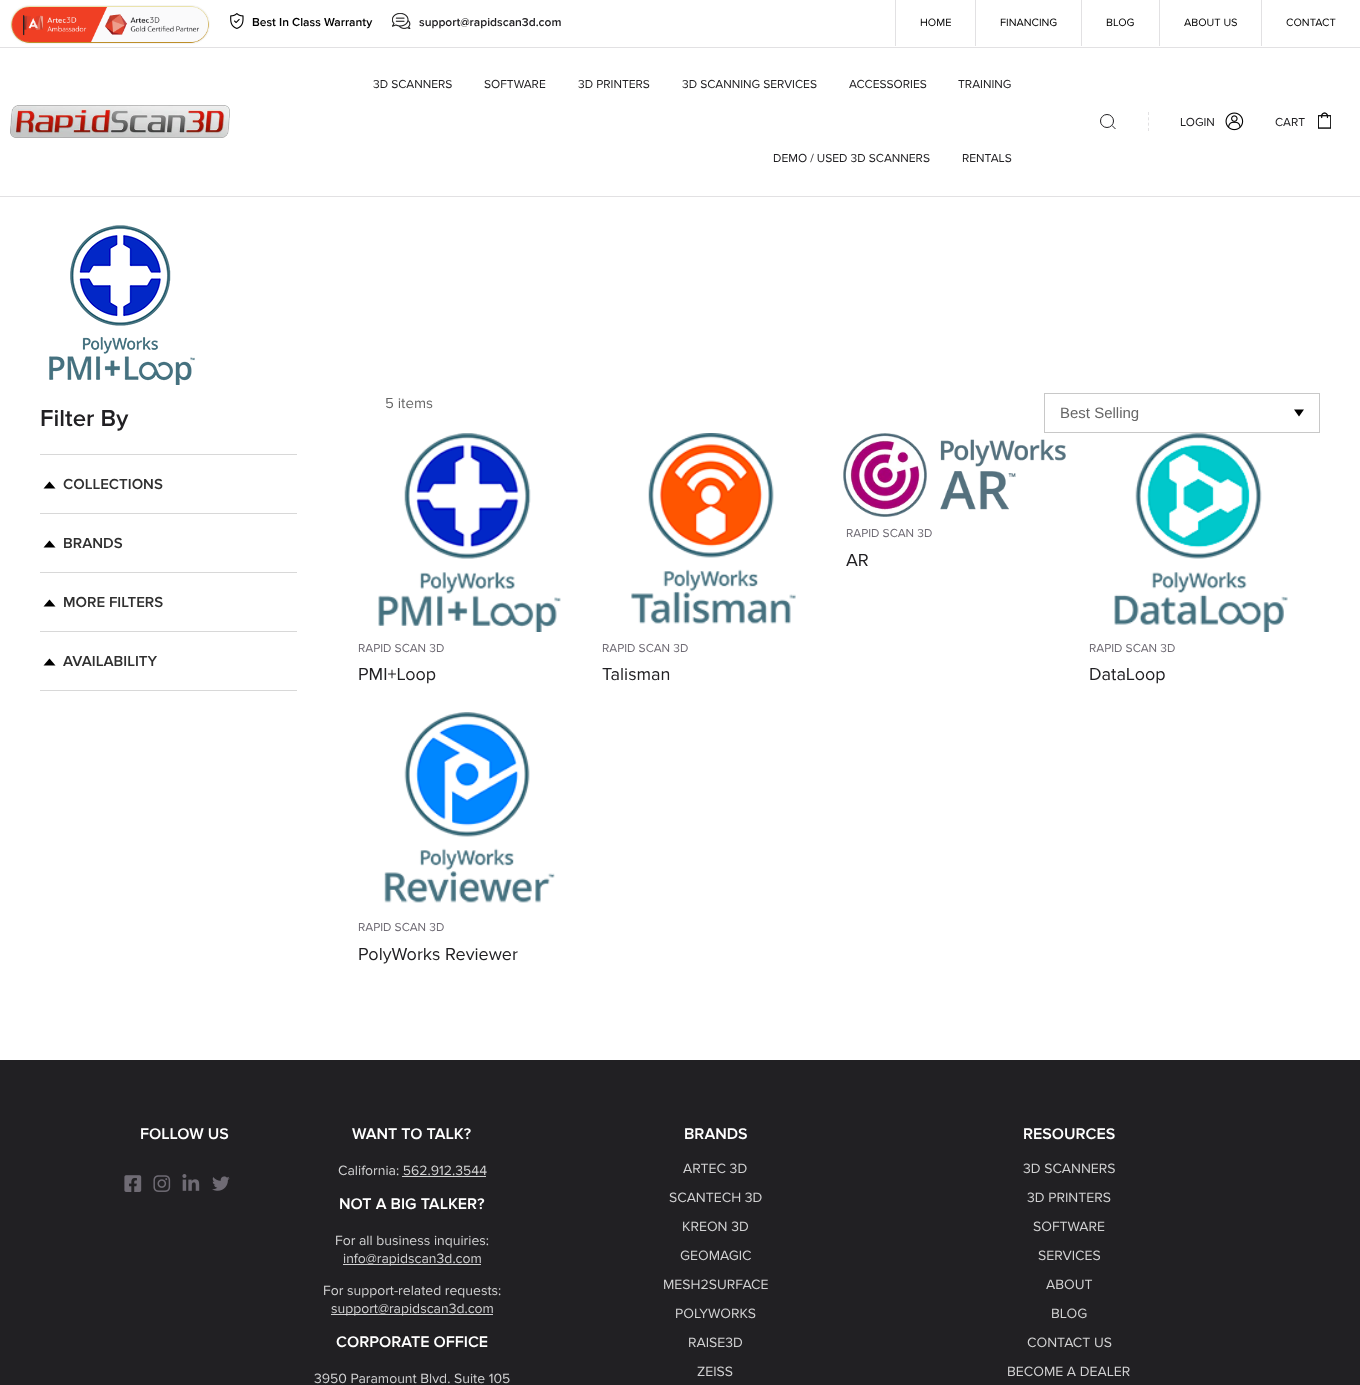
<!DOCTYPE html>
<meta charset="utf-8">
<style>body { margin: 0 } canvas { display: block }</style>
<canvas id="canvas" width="1360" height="1385"></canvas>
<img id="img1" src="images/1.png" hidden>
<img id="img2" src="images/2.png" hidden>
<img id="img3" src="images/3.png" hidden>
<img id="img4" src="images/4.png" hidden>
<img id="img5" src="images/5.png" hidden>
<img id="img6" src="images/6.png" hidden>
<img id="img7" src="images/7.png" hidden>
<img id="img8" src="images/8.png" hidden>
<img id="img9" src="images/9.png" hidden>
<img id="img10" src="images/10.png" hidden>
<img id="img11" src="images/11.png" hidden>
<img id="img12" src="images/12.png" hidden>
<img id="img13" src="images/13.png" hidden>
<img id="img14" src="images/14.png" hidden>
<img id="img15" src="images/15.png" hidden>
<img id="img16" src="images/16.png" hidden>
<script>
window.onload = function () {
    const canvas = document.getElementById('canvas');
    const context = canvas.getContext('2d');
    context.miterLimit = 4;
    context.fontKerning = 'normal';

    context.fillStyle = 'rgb(255, 255, 255)';
    context.fillRect(0, 0, 1360, 1385);
    context.fillStyle = 'rgb(226, 225, 227)';
    context.fillRect(0, 47, 1360, 1);
    context.drawImage(document.getElementById('img1'), 10, 5, 200, 39);
    context.drawImage(document.getElementById('img2'), 230, 13, 14, 16);
    context.drawImage(document.getElementById('img3'), 392, 13, 19, 16);
    context.fillRect(895, 0, 1, 46);
    context.fillRect(975, 0, 1, 46);
    context.fillRect(1081, 0, 1, 46);
    context.fillRect(1159, 0, 1, 46);
    context.fillRect(1261, 0, 1, 46);
    context.fillRect(0, 196, 1360, 1);
    context.drawImage(document.getElementById('img4'), 10, 105, 220, 33);
    context.beginPath();
    context.moveTo(1148.5, 112);
    context.lineTo(1148.5, 131);
    context.strokeStyle = 'rgb(226, 225, 227)';
    context.setLineDash([3, 2.33]);
    context.stroke();
    context.beginPath();
    context.arc(1107, 121, 6.5, 0, 2 * Math.PI);
    context.strokeStyle = 'rgb(33, 32, 35)';
    context.setLineDash([]);
    context.stroke();
    context.beginPath();
    context.moveTo(1112, 125.5);
    context.lineTo(1115.5, 129);
    context.stroke();
    context.drawImage(document.getElementById('img5'), 1225, 112, 19, 19);
    context.drawImage(document.getElementById('img6'), 1318, 112, 13, 17);
    context.drawImage(document.getElementById('img7'), 49, 225, 146, 160);
    context.strokeStyle = 'rgb(200, 200, 200)';
    context.strokeRect(1044.5, 393.5, 275, 39);
    context.fillStyle = 'rgb(0, 0, 0)';
    context.beginPath();
    context.moveTo(1294, 409.5);
    context.lineTo(1304, 409.5);
    context.lineTo(1299, 416.5);
    context.closePath();
    context.fill();
    context.fillStyle = 'rgb(216, 216, 216)';
    context.fillRect(40, 454, 257, 1);
    context.fillRect(40, 513, 257, 1);
    context.fillStyle = 'rgb(0, 0, 0)';
    context.beginPath();
    context.moveTo(49.5, 481.5);
    context.lineTo(43.5, 488.5);
    context.lineTo(55.5, 488.5);
    context.lineTo(52.5, 485);
    context.closePath();
    context.fill();
    context.fillStyle = 'rgb(216, 216, 216)';
    context.fillRect(40, 572, 257, 1);
    context.fillStyle = 'rgb(0, 0, 0)';
    context.beginPath();
    context.moveTo(49.5, 540.5);
    context.lineTo(43.5, 547.5);
    context.lineTo(55.5, 547.5);
    context.lineTo(52.5, 544);
    context.closePath();
    context.fill();
    context.fillStyle = 'rgb(216, 216, 216)';
    context.fillRect(40, 631, 257, 1);
    context.fillStyle = 'rgb(0, 0, 0)';
    context.beginPath();
    context.moveTo(49.5, 599.5);
    context.lineTo(43.5, 606.5);
    context.lineTo(55.5, 606.5);
    context.lineTo(52.5, 603);
    context.closePath();
    context.fill();
    context.fillStyle = 'rgb(216, 216, 216)';
    context.fillRect(40, 690, 257, 1);
    context.fillStyle = 'rgb(0, 0, 0)';
    context.beginPath();
    context.moveTo(49.5, 658.5);
    context.lineTo(43.5, 665.5);
    context.lineTo(55.5, 665.5);
    context.lineTo(52.5, 662);
    context.closePath();
    context.fill();
    context.drawImage(document.getElementById('img8'), 843, 433, 223, 84);
    context.drawImage(document.getElementById('img9'), 378, 433, 183, 199);
    context.drawImage(document.getElementById('img10'), 631, 433, 165, 191);
    context.drawImage(document.getElementById('img11'), 1114, 433, 174, 199);
    context.drawImage(document.getElementById('img12'), 384, 712, 171, 191);
    context.fillStyle = 'rgb(33, 32, 35)';
    context.fillRect(0, 1060, 1360, 325);
    context.drawImage(document.getElementById('img13'), 124, 1175, 18, 17);
    context.drawImage(document.getElementById('img14'), 153, 1175, 18, 17);
    context.drawImage(document.getElementById('img15'), 182, 1174, 18, 17);
    context.drawImage(document.getElementById('img16'), 212, 1176, 18, 15);
    context.fillStyle = 'rgb(210, 210, 211)';
    context.fillRect(402, 1176, 84, 1);
    context.fillRect(343, 1264, 138, 1);
    context.fillRect(331, 1314, 162, 1);
    context.font = '600 12px Proxima Nova';
    context.fillStyle = 'rgb(0, 0, 0)';
    context.fillText('Best In Class Warranty', 252, 26);
    context.fillStyle = 'rgb(33, 32, 35)';
    context.fillText('support@rapidscan3d.com', 419, 26);
    context.font = '11px Proxima Nova';
    context.fillStyle = 'rgb(0, 0, 0)';
    context.fillText('HOME', 920, 26);
    context.fillText('FINANCING', 1000, 26);
    context.fillText('BLOG', 1106, 26);
    context.fillText('ABOUT US', 1184, 26);
    context.fillText('CONTACT', 1286, 26);
    context.font = '12px Proxima Nova';
    context.fillStyle = 'rgb(33, 32, 35)';
    context.fillText('3D SCANNERS', 373, 88);
    context.fillText('SOFTWARE', 484, 88);
    context.fillText('3D PRINTERS', 578, 88);
    context.fillText('3D SCANNING SERVICES', 682, 88);
    context.fillText('ACCESSORIES', 849, 88);
    context.fillText('TRAINING', 958, 88);
    context.fillText('DEMO / USED 3D SCANNERS', 773, 162);
    context.fillText('RENTALS', 962, 162);
    context.fillText('LOGIN', 1180, 126);
    context.fillText('CART', 1275, 126);
    context.font = '15px Proxima Nova';
    context.fillStyle = 'rgb(103, 103, 103)';
    context.fillText('5 items', 385, 408);
    context.font = '15px Liberation Sans';
    context.fillText('Best Selling', 1060, 418);
    context.font = '600 24px Proxima Nova';
    context.fillStyle = 'rgb(33, 32, 35)';
    context.fillText('Filter By', 40, 426);
    context.font = '600 15px Proxima Nova';
    context.fillStyle = 'rgb(48, 48, 48)';
    context.fillText('COLLECTIONS', 63, 489);
    context.fillText('BRANDS', 63, 548);
    context.fillText('MORE FILTERS', 63, 607);
    context.fillText('AVAILABILITY', 63, 666);
    context.font = '12px Proxima Nova';
    context.fillStyle = 'rgb(111, 107, 116)';
    context.fillText('RAPID SCAN 3D', 846, 537);
    context.font = '18px Proxima Nova';
    context.fillStyle = 'rgb(33, 32, 35)';
    context.fillText('AR', 846, 566);
    context.font = '12px Proxima Nova';
    context.fillStyle = 'rgb(111, 107, 116)';
    context.fillText('RAPID SCAN 3D', 358, 652);
    context.font = '18px Proxima Nova';
    context.fillStyle = 'rgb(33, 32, 35)';
    context.fillText('PMI+Loop', 358, 680);
    context.font = '12px Proxima Nova';
    context.fillStyle = 'rgb(111, 107, 116)';
    context.fillText('RAPID SCAN 3D', 602, 652);
    context.font = '18px Proxima Nova';
    context.fillStyle = 'rgb(33, 32, 35)';
    context.fillText('Talisman', 602, 680);
    context.font = '12px Proxima Nova';
    context.fillStyle = 'rgb(111, 107, 116)';
    context.fillText('RAPID SCAN 3D', 1089, 652);
    context.font = '18px Proxima Nova';
    context.fillStyle = 'rgb(33, 32, 35)';
    context.fillText('DataLoop', 1089, 680);
    context.font = '12px Proxima Nova';
    context.fillStyle = 'rgb(111, 107, 116)';
    context.fillText('RAPID SCAN 3D', 358, 931);
    context.font = '18px Proxima Nova';
    context.fillStyle = 'rgb(33, 32, 35)';
    context.fillText('PolyWorks Reviewer', 358, 960);
    context.font = '600 16px Proxima Nova';
    context.fillStyle = 'rgb(255, 255, 255)';
    context.fillText('FOLLOW US', 140, 1139);
    context.fillText('WANT TO TALK?', 352, 1139);
    context.font = '14px Proxima Nova';
    context.fillStyle = 'rgb(210, 210, 211)';
    context.fillText('California: 562.912.3544', 338, 1175);
    context.font = '600 16px Proxima Nova';
    context.fillStyle = 'rgb(255, 255, 255)';
    context.fillText('NOT A BIG TALKER?', 339, 1209);
    context.font = '14px Proxima Nova';
    context.fillStyle = 'rgb(210, 210, 211)';
    context.fillText('For all business inquiries:', 335, 1245);
    context.fillText('info@rapidscan3d.com', 343, 1263);
    context.fillText('For support-related requests:', 323, 1295);
    context.fillText('support@rapidscan3d.com', 331, 1313);
    context.font = '600 16px Proxima Nova';
    context.fillStyle = 'rgb(255, 255, 255)';
    context.fillText('CORPORATE OFFICE', 336, 1347);
    context.font = '14px Proxima Nova';
    context.fillStyle = 'rgb(210, 210, 211)';
    context.fillText('3950 Paramount Blvd. Suite 105', 314, 1383);
    context.font = '600 16px Proxima Nova';
    context.fillStyle = 'rgb(255, 255, 255)';
    context.fillText('BRANDS', 684, 1139);
    context.font = '14px Proxima Nova';
    context.fillStyle = 'rgb(210, 210, 211)';
    context.fillText('ARTEC 3D', 683, 1173);
    context.fillText('SCANTECH 3D', 669, 1202);
    context.fillText('KREON 3D', 682, 1231);
    context.fillText('GEOMAGIC', 680, 1260);
    context.fillText('MESH2SURFACE', 663, 1289);
    context.fillText('POLYWORKS', 675, 1318);
    context.fillText('RAISE3D', 688, 1347);
    context.fillText('ZEISS', 697, 1376);
    context.font = '600 16px Proxima Nova';
    context.fillStyle = 'rgb(255, 255, 255)';
    context.fillText('RESOURCES', 1023, 1139);
    context.font = '14px Proxima Nova';
    context.fillStyle = 'rgb(210, 210, 211)';
    context.fillText('3D SCANNERS', 1023, 1173);
    context.fillText('3D PRINTERS', 1027, 1202);
    context.fillText('SOFTWARE', 1033, 1231);
    context.fillText('SERVICES', 1038, 1260);
    context.fillText('ABOUT', 1046, 1289);
    context.fillText('BLOG', 1051, 1318);
    context.fillText('CONTACT US', 1027, 1347);
    context.fillText('BECOME A DEALER', 1007, 1376);
};
</script>
